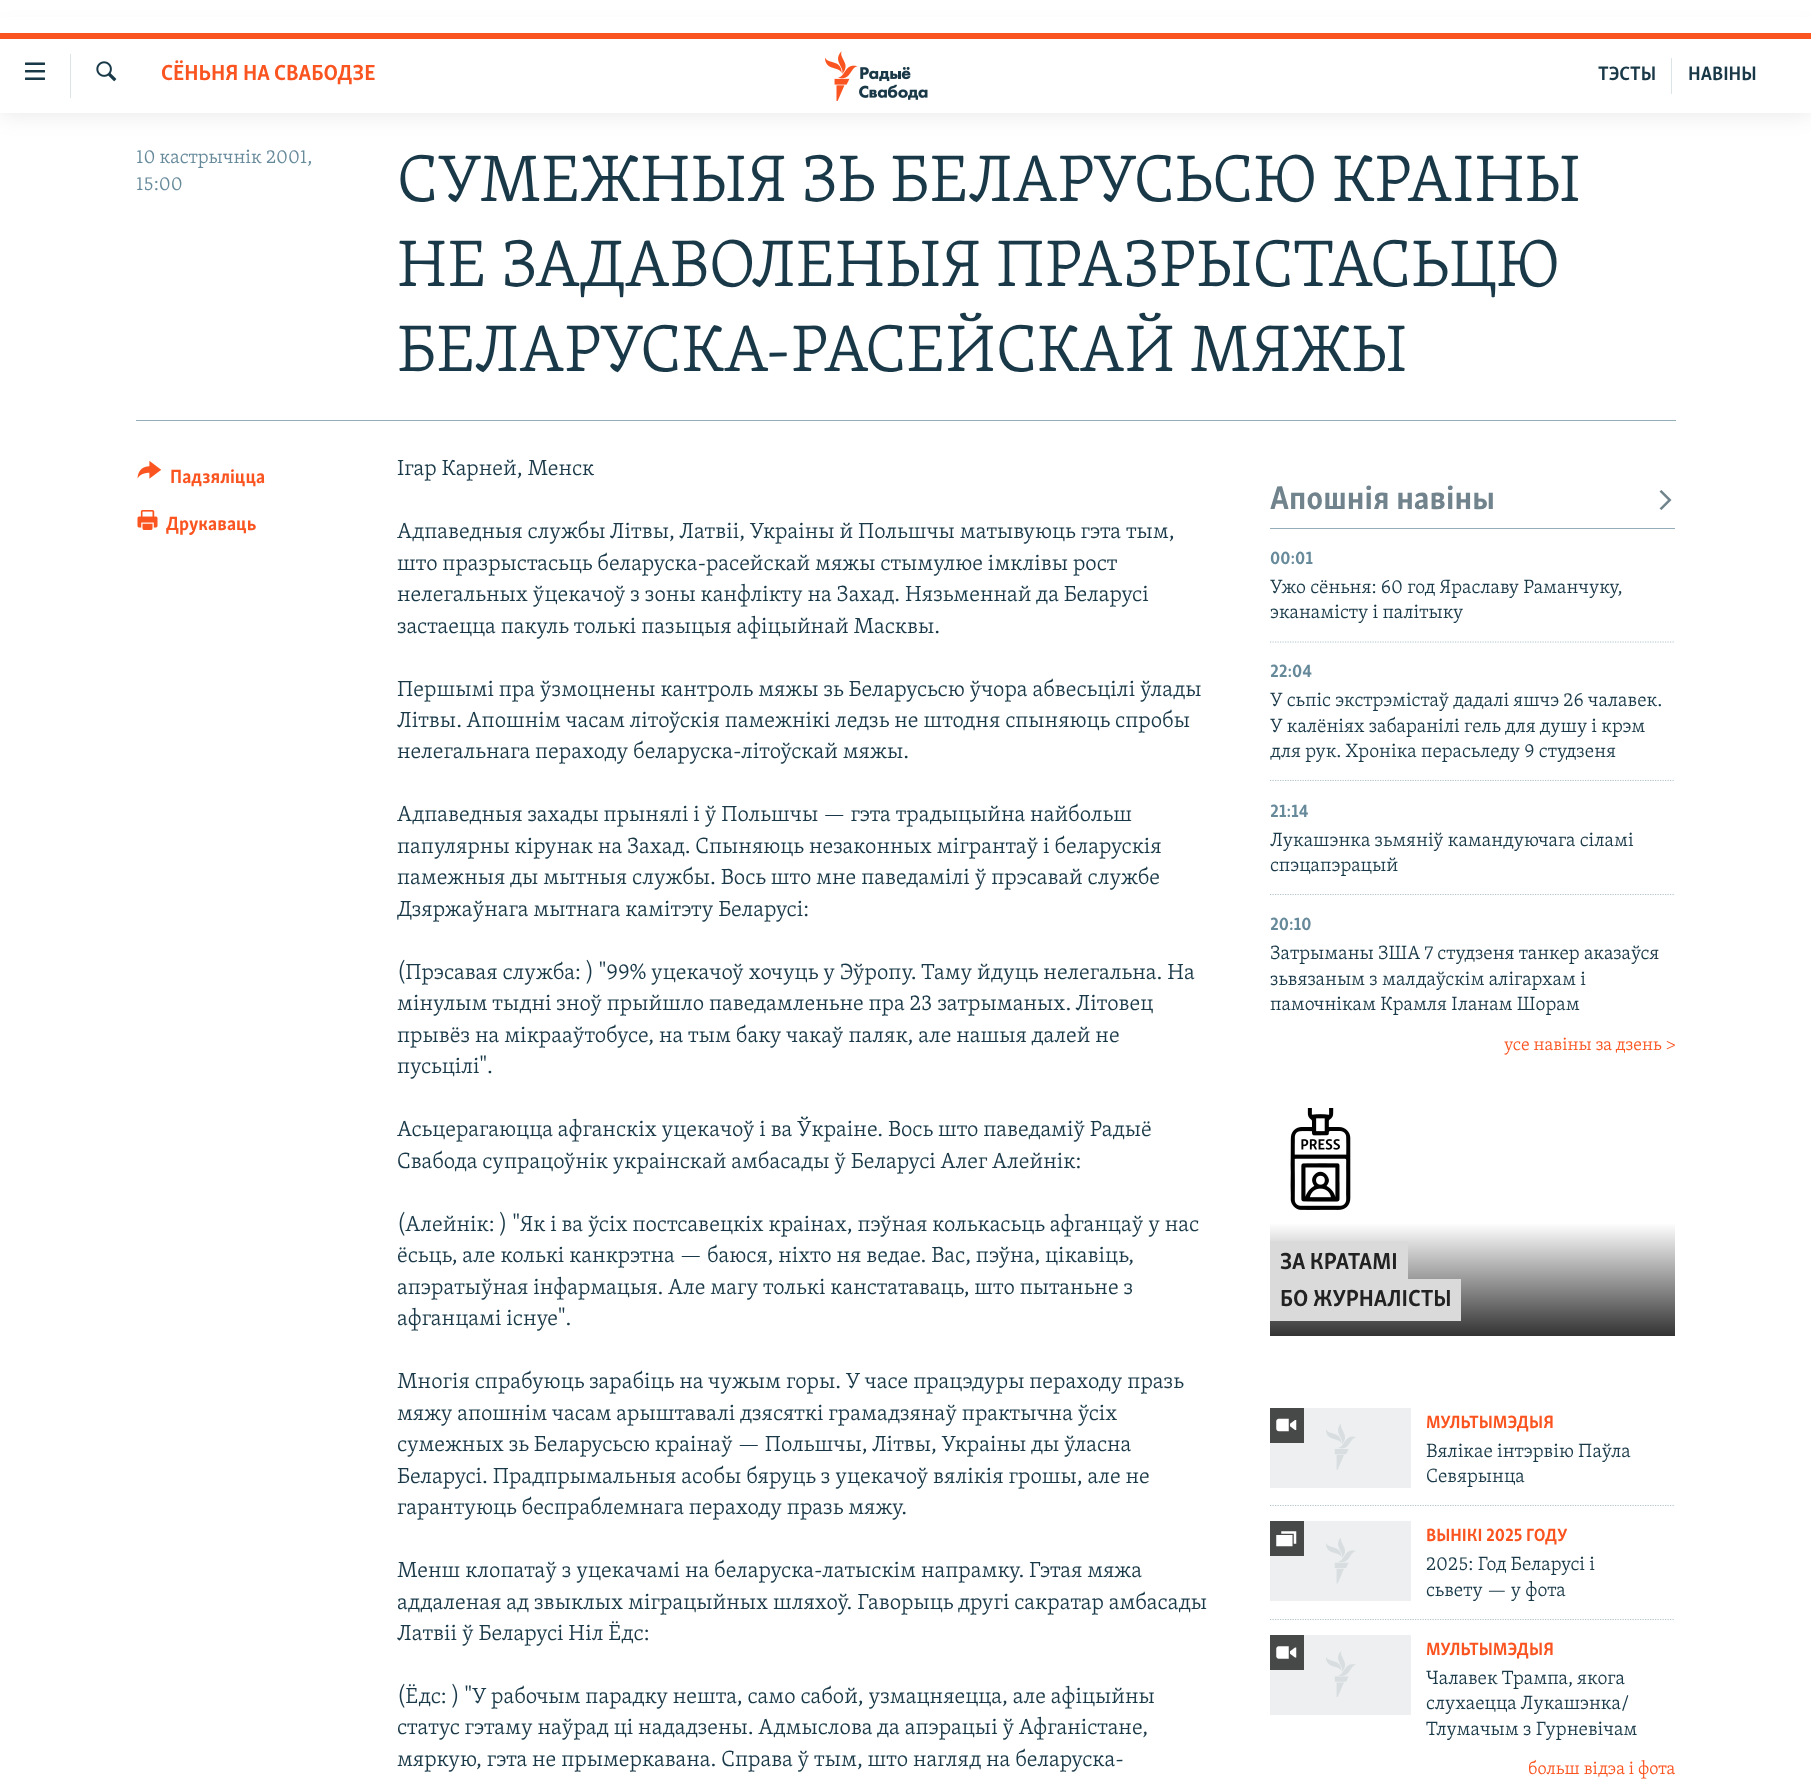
<!DOCTYPE html>
<meta charset="utf-8">
<style>body { margin: 0 } canvas { display: block }</style>
<canvas id="canvas" width="1811" height="1792"></canvas>
<img id="img1" src="images/1.png" hidden>
<img id="img2" src="images/2.png" hidden>
<img id="img3" src="images/3.png" hidden>
<img id="img4" src="images/4.png" hidden>
<img id="img5" src="images/5.png" hidden>
<img id="img6" src="images/6.png" hidden>
<img id="img7" src="images/7.png" hidden>
<img id="img8" src="images/8.png" hidden>
<img id="img9" src="images/9.png" hidden>
<img id="img10" src="images/10.png" hidden>
<img id="img11" src="images/11.png" hidden>
<img id="img12" src="images/12.png" hidden>
<script>
window.onload = function () {
    const canvas = document.getElementById('canvas');
    const context = canvas.getContext('2d');
    context.miterLimit = 4;
    context.fontKerning = 'normal';
    let gradient;

    context.fillStyle = 'rgb(255, 255, 255)';
    context.fillRect(0, 0, 1811, 1792);
    context.fillStyle = 'rgba(0, 0, 0, 0.1)';
    context.filter = 'blur(12.5px)';
    context.beginPath();
    context.rect(0, 33, 1811, 80);
    context.fill();
    context.filter = 'none';
    context.fillStyle = 'rgb(255, 255, 255)';
    context.fillRect(0, 17, 1811, 16);
    context.fillRect(0, 39, 1811, 74);
    context.fillStyle = 'rgb(250, 84, 32)';
    context.fillRect(0, 33, 1811, 6);
    context.drawImage(document.getElementById('img1'), 25, 62, 20, 18);
    context.fillStyle = 'rgb(220, 228, 232)';
    context.fillRect(70, 54, 1, 44);
    context.drawImage(document.getElementById('img2'), 96, 61, 21, 21);
    context.drawImage(document.getElementById('img3'), 825, 51, 103, 50);
    context.fillRect(1671, 58, 1, 36);
    context.fillStyle = 'rgb(149, 173, 185)';
    context.fillRect(136, 420, 1540, 1);
    context.drawImage(document.getElementById('img4'), 137, 461, 25, 18);
    context.drawImage(document.getElementById('img5'), 137, 510, 21, 20);
    context.fillRect(1270, 528, 405, 1);
    context.fillStyle = 'rgb(113, 131, 141)';
    context.beginPath();
    context.moveTo(1661.5, 510);
    context.lineTo(1671.5, 500);
    context.lineTo(1661.5, 490);
    context.lineTo(1659.5, 491.5);
    context.lineTo(1668, 500);
    context.lineTo(1659.5, 508.5);
    context.closePath();
    context.fill();
    context.beginPath();
    context.moveTo(1270, 642);
    context.lineTo(1675, 642);
    context.strokeStyle = 'rgb(180, 197, 205)';
    context.lineWidth = 1.2;
    context.setLineDash([1.25, 1.25]);
    context.stroke();
    context.beginPath();
    context.moveTo(1270, 780.5);
    context.lineTo(1675, 780.5);
    context.stroke();
    context.beginPath();
    context.moveTo(1270, 894.5);
    context.lineTo(1675, 894.5);
    context.stroke();
    context.drawImage(document.getElementById('img6'), 1290, 1108, 61, 102);
    gradient = context.createLinearGradient(1473, 1336, 1473, 1223);
    gradient.addColorStop(0, 'rgb(51, 51, 51)');
    gradient.addColorStop(1, 'rgb(255, 255, 255)');
    context.fillStyle = gradient;
    context.fillRect(1270, 1224, 405, 112);
    context.fillStyle = 'rgb(218, 218, 218)';
    context.fillRect(1270, 1241, 138, 38);
    context.fillRect(1270, 1279, 191, 42);
    context.fillStyle = 'rgb(237, 239, 240)';
    context.fillRect(1270, 1408, 141, 80);
    context.drawImage(document.getElementById('img7'), 1326, 1424, 30, 46);
    context.fillStyle = 'rgb(71, 72, 72)';
    context.fillRect(1270, 1408, 34, 35);
    context.drawImage(document.getElementById('img8'), 1276, 1418, 21, 14);
    context.beginPath();
    context.moveTo(1270, 1505.5);
    context.lineTo(1675, 1505.5);
    context.stroke();
    context.fillStyle = 'rgb(237, 239, 240)';
    context.fillRect(1270, 1521, 141, 80);
    context.drawImage(document.getElementById('img9'), 1326, 1538, 30, 46);
    context.fillStyle = 'rgb(71, 72, 72)';
    context.fillRect(1270, 1521, 34, 35);
    context.drawImage(document.getElementById('img10'), 1276, 1531, 21, 16);
    context.beginPath();
    context.moveTo(1270, 1619.5);
    context.lineTo(1675, 1619.5);
    context.stroke();
    context.fillStyle = 'rgb(237, 239, 240)';
    context.fillRect(1270, 1635, 141, 80);
    context.drawImage(document.getElementById('img11'), 1326, 1651, 30, 46);
    context.fillStyle = 'rgb(71, 72, 72)';
    context.fillRect(1270, 1635, 34, 35);
    context.drawImage(document.getElementById('img12'), 1276, 1646, 21, 13);
    context.font = 'bold 22.5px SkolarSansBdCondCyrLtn';
    context.fillStyle = 'rgb(250, 84, 32)';
    context.fillText('СЁНЬНЯ НА СВАБОДЗЕ', 161, 80);
    context.font = 'bold 20px SkolarSansBdCondCyrLtn';
    context.fillStyle = 'rgb(26, 57, 72)';
    context.fillText('ТЭСТЫ', 1598, 80);
    context.fillText('НАВІНЫ', 1688, 80);
    context.font = '300 19.7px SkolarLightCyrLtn';
    context.fillStyle = 'rgb(103, 138, 155)';
    context.fillText('10 кастрычнік 2001,', 136, 163);
    context.fillText('15:00', 136, 190);
    context.font = '300 67.5px SkolarLightCyrLtn';
    context.fillStyle = 'rgb(26, 57, 72)';
    context.fillText('СУМЕЖНЫЯ ЗЬ БЕЛАРУСЬСЮ КРАІНЫ', 397, 201);
    context.fillText('НЕ ЗАДАВОЛЕНЫЯ ПРАЗРЫСТАСЬЦЮ', 397, 286);
    context.fillText('БЕЛАРУСКА-РАСЕЙСКАЙ МЯЖЫ', 397, 371);
    context.font = 'bold 19.7px SkolarSansBdCondCyrLtn';
    context.fillStyle = 'rgb(250, 84, 32)';
    context.fillText('Падзяліцца', 170, 483);
    context.fillText('Друкаваць', 166, 530);
    context.font = '300 22.5px SkolarLightCyrLtn';
    context.fillStyle = 'rgb(26, 57, 72)';
    context.fillText('Ігар Карней, Менск', 397, 475);
    context.fillText('Адпаведныя службы Літвы, Латвіі, Украіны й Польшчы матывуюць гэта тым,', 397, 538);
    context.fillText('што празрыстасьць беларуска-расейскай мяжы стымулюе імклівы рост', 397, 570);
    context.fillText('нелегальных ўцекачоў з зоны канфлікту на Захад. Нязьменнай да Беларусі', 397, 601);
    context.fillText('застаецца пакуль толькі пазыцыя афіцыйнай Масквы.', 397, 633);
    context.fillText('Першымі пра ўзмоцнены кантроль мяжы зь Беларусьсю ўчора абвесьцілі ўлады', 397, 696);
    context.fillText('Літвы. Апошнім часам літоўскія памежнікі ледзь не штодня спыняюць спробы', 397, 727);
    context.fillText('нелегальнага пераходу беларуска-літоўскай мяжы.', 397, 758);
    context.fillText('Адпаведныя захады прынялі і ў Польшчы — гэта традыцыйна найбольш', 397, 821);
    context.fillText('папулярны кірунак на Захад. Спыняюць незаконных мігрантаў і беларускія', 397, 853);
    context.fillText('памежныя ды мытныя службы. Вось што мне паведамілі ў прэсавай службе', 397, 884);
    context.fillText('Дзяржаўнага мытнага камітэту Беларусі:', 397, 916);
    context.fillText('(Прэсавая служба: ) "99% уцекачоў хочуць у Эўропу. Таму йдуць нелегальна. На', 397, 979);
    context.fillText('мінулым тыдні зноў прыйшло паведамленьне пра 23 затрыманых. Літовец', 397, 1010);
    context.fillText('прывёз на мікрааўтобусе, на тым баку чакаў паляк, але нашыя далей не', 397, 1042);
    context.fillText('пусьцілі".', 397, 1073);
    context.fillText('Асьцерагаюцца афганскіх уцекачоў і ва Ўкраіне. Вось што паведаміў Радыё', 397, 1136);
    context.fillText('Свабода супрацоўнік украінскай амбасады ў Беларусі Алег Алейнік:', 397, 1168);
    context.fillText('(Алейнік: ) "Як і ва ўсіх постсавецкіх краінах, пэўная колькасьць афганцаў у нас', 397, 1231);
    context.fillText('ёсьць, але колькі канкрэтна — баюся, ніхто ня ведае. Вас, пэўна, цікавіць,', 397, 1262);
    context.fillText('апэратыўная інфармацыя. Але магу толькі канстатаваць, што пытаньне з', 397, 1294);
    context.fillText('афганцамі існуе".', 397, 1325);
    context.fillText('Многія спрабуюць зарабіць на чужым горы. У часе працэдуры пераходу празь', 397, 1388);
    context.fillText('мяжу апошнім часам арыштавалі дзясяткі грамадзянаў практычна ўсіх', 397, 1420);
    context.fillText('сумежных зь Беларусьсю краінаў — Польшчы, Літвы, Украіны ды ўласна', 397, 1451);
    context.fillText('Беларусі. Прадпрымальныя асобы бяруць з уцекачоў вялікія грошы, але не', 397, 1483);
    context.fillText('гарантуюць беспраблемнага пераходу празь мяжу.', 397, 1514);
    context.fillText('Менш клопатаў з уцекачамі на беларуска-латыскім напрамку. Гэтая мяжа', 397, 1577);
    context.fillText('аддаленая ад звыклых міграцыйных шляхоў. Гаворыць другі сакратар амбасады', 397, 1609);
    context.fillText('Латвіі ў Беларусі Ніл Ёдс:', 397, 1640);
    context.fillText('(Ёдс: ) "У рабочым парадку нешта, само сабой, узмацняецца, але афіцыйны', 397, 1703);
    context.fillText('статус гэтаму наўрад ці нададзены. Адмыслова да апэрацыі ў Афганістане,', 397, 1734);
    context.fillText('мяркую, гэта не прымеркавана. Справа ў тым, што нагляд на беларуска-', 397, 1766);
    context.font = 'bold 33.75px SkolarSansBdCondCyrLtn';
    context.fillStyle = 'rgb(113, 131, 141)';
    context.fillText('Апошнія навіны', 1270, 509);
    context.font = 'bold 18.25px SkolarSansBdCondCyrLtn';
    context.fillStyle = 'rgb(103, 138, 155)';
    context.fillText('00:01', 1270, 564);
    context.font = '300 19.7px SkolarLightCyrLtn';
    context.fillStyle = 'rgb(26, 57, 72)';
    context.fillText('Ужо сёньня: 60 год Яраславу Раманчуку,', 1270, 593);
    context.fillText('эканамісту і палітыку', 1270, 618);
    context.font = 'bold 18.25px SkolarSansBdCondCyrLtn';
    context.fillStyle = 'rgb(103, 138, 155)';
    context.fillText('22:04', 1270, 677);
    context.font = '300 19.7px SkolarLightCyrLtn';
    context.fillStyle = 'rgb(26, 57, 72)';
    context.fillText('У сьпіс экстрэмістаў дадалі яшчэ 26 чалавек.', 1270, 706);
    context.fillText('У калёніях забаранілі гель для душу і крэм', 1270, 732);
    context.fillText('для рук. Хроніка перасьледу 9 студзеня', 1270, 757);
    context.font = 'bold 18.25px SkolarSansBdCondCyrLtn';
    context.fillStyle = 'rgb(103, 138, 155)';
    context.fillText('21:14', 1270, 817);
    context.font = '300 19.7px SkolarLightCyrLtn';
    context.fillStyle = 'rgb(26, 57, 72)';
    context.fillText('Лукашэнка зьмяніў камандуючага сіламі', 1270, 846);
    context.fillText('спэцапэрацый', 1270, 871);
    context.font = 'bold 18.25px SkolarSansBdCondCyrLtn';
    context.fillStyle = 'rgb(103, 138, 155)';
    context.fillText('20:10', 1270, 930);
    context.font = '300 19.7px SkolarLightCyrLtn';
    context.fillStyle = 'rgb(26, 57, 72)';
    context.fillText('Затрыманы ЗША 7 студзеня танкер аказаўся', 1270, 959);
    context.fillText('зьвязаным з малдаўскім алігархам і', 1270, 985);
    context.fillText('памочнікам Крамля Іланам Шорам', 1270, 1010);
    context.font = '300 18.25px SkolarLightCyrLtn';
    context.fillStyle = 'rgb(250, 84, 32)';
    context.fillText('усе навіны за дзень >', 1504, 1050);
    context.font = 'bold 23.75px SkolarSansBdCondCyrLtn';
    context.fillStyle = 'rgb(34, 34, 34)';
    context.fillText('ЗА КРАТАМІ', 1280, 1269);
    context.fillText('БО ЖУРНАЛІСТЫ', 1280, 1306);
    context.font = 'bold 18.25px SkolarSansBdCondCyrLtn';
    context.fillStyle = 'rgb(250, 84, 32)';
    context.fillText('МУЛЬТЫМЭДЫЯ', 1426, 1428);
    context.font = '300 19.7px SkolarLightCyrLtn';
    context.fillStyle = 'rgb(26, 57, 72)';
    context.fillText('Вялікае інтэрвію Паўла', 1426, 1457);
    context.fillText('Севярынца', 1426, 1482);
    context.font = 'bold 18.25px SkolarSansBdCondCyrLtn';
    context.fillStyle = 'rgb(250, 84, 32)';
    context.fillText('ВЫНІКІ 2025 ГОДУ', 1426, 1541);
    context.font = '300 19.7px SkolarLightCyrLtn';
    context.fillStyle = 'rgb(26, 57, 72)';
    context.fillText('2025: Год Беларусі і', 1426, 1570);
    context.fillText('сьвету — у фота', 1426, 1596);
    context.font = 'bold 18.25px SkolarSansBdCondCyrLtn';
    context.fillStyle = 'rgb(250, 84, 32)';
    context.fillText('МУЛЬТЫМЭДЫЯ', 1426, 1655);
    context.font = '300 19.7px SkolarLightCyrLtn';
    context.fillStyle = 'rgb(26, 57, 72)';
    context.fillText('Чалавек Трампа, якога', 1426, 1684);
    context.fillText('слухаецца Лукашэнка/', 1426, 1709);
    context.fillText('Тлумачым з Гурневічам', 1426, 1735);
    context.font = '300 18.25px SkolarLightCyrLtn';
    context.fillStyle = 'rgb(250, 84, 32)';
    context.fillText('больш відэа і фота', 1528, 1774);
};
</script>
